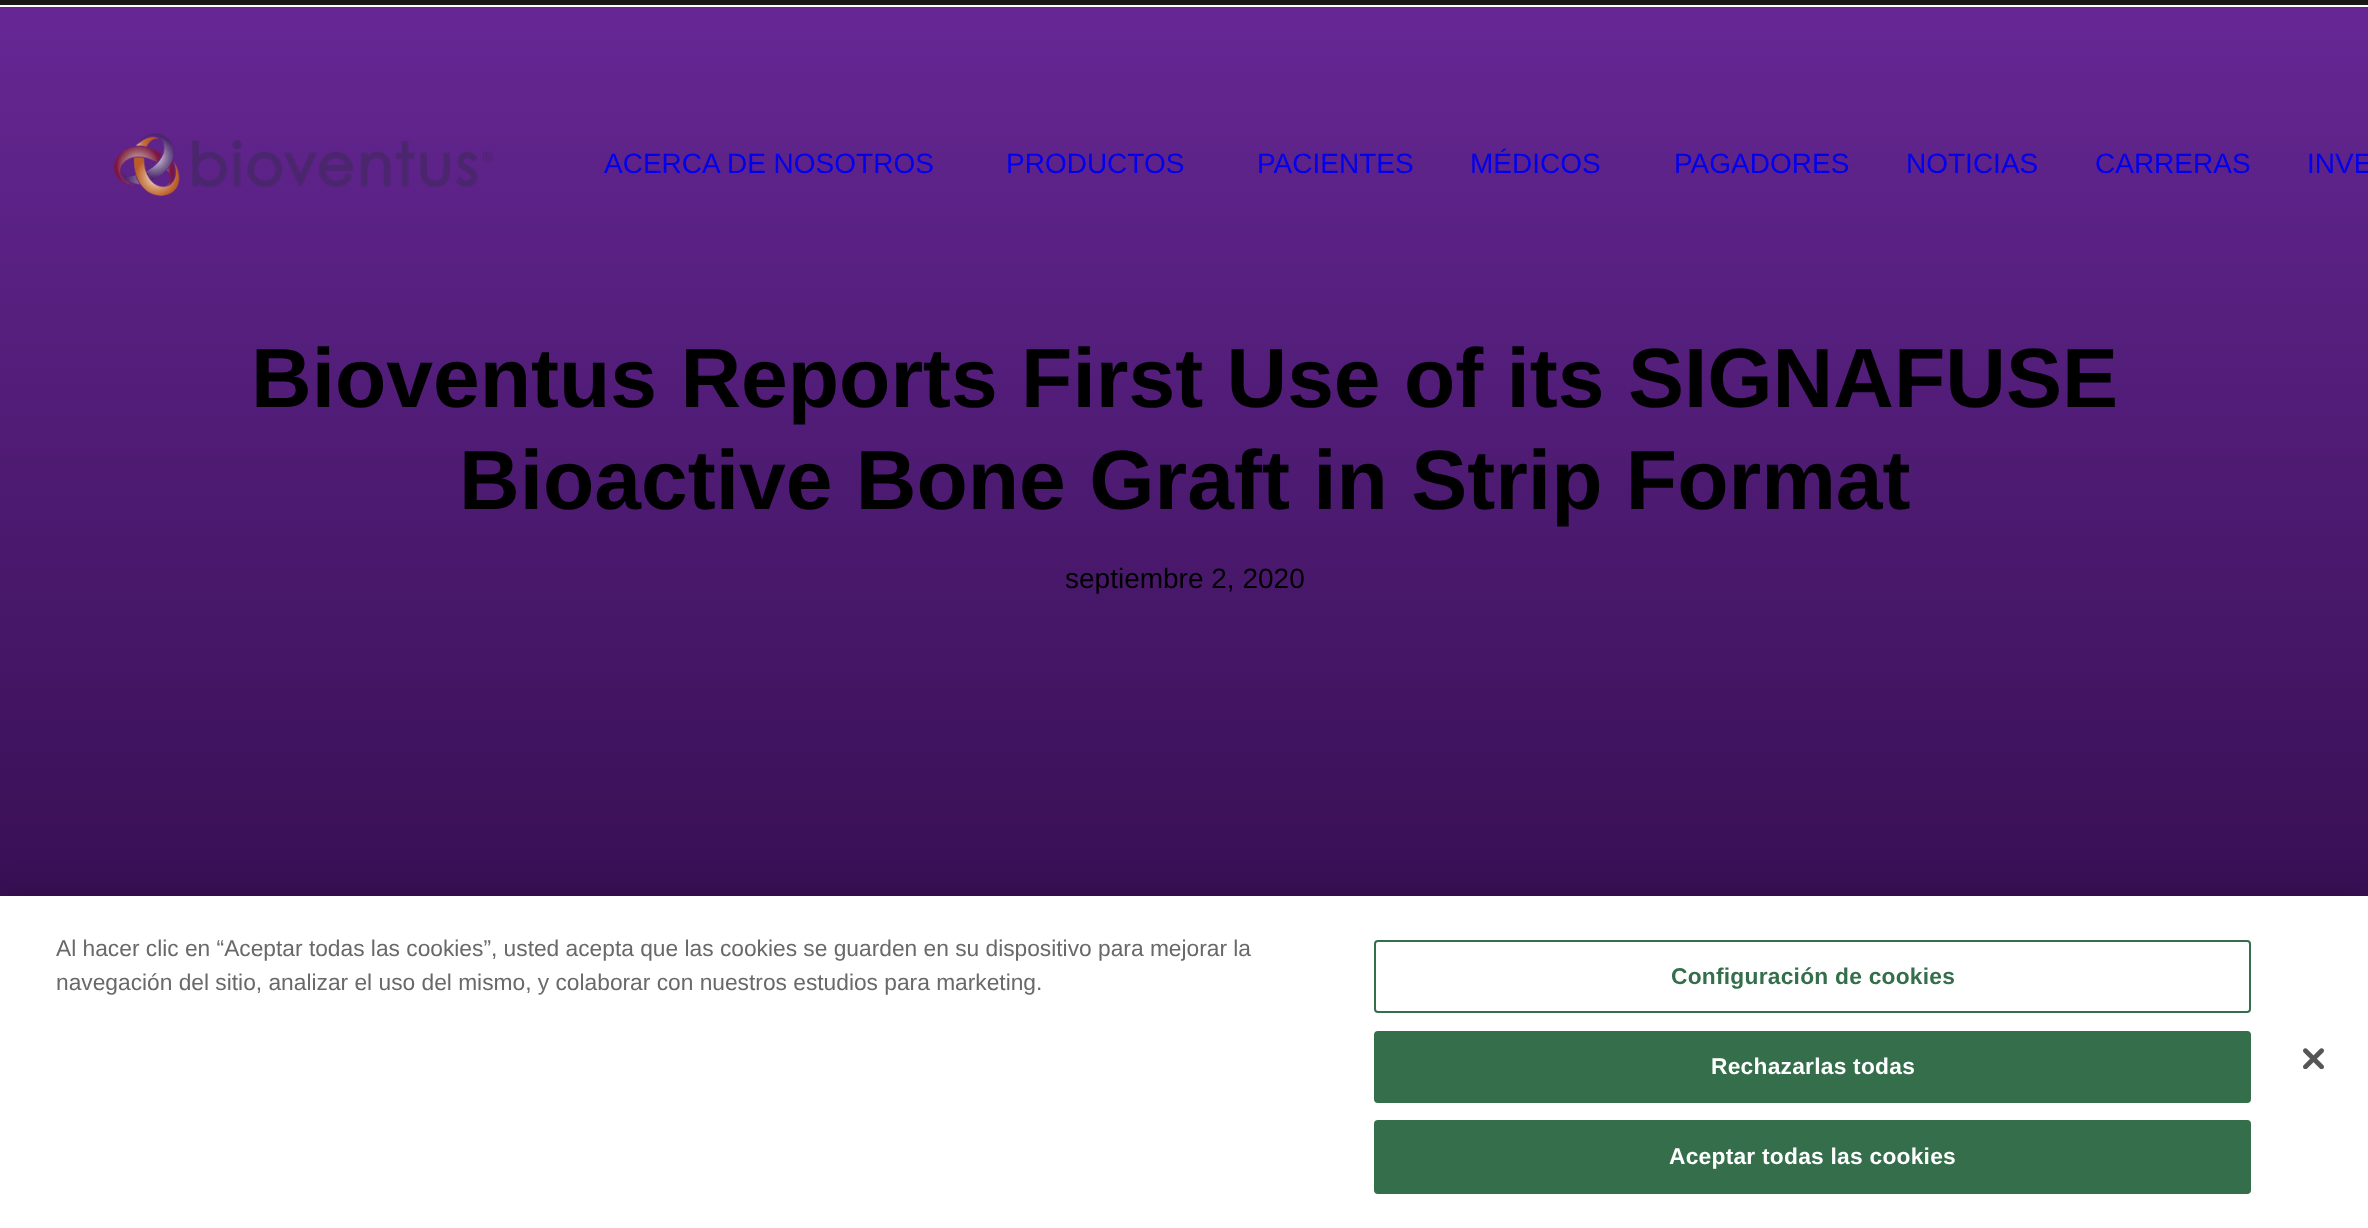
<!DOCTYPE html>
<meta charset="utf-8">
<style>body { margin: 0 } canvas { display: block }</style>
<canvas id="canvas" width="2368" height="1228"></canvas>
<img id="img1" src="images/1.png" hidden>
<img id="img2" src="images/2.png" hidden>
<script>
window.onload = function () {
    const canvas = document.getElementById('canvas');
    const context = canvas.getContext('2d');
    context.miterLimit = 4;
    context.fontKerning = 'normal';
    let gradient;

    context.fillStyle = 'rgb(255, 255, 255)';
    context.fillRect(0, 0, 2368, 1228);
    context.fillStyle = 'rgb(24, 24, 24)';
    context.fillRect(0, 0, 2368, 5);
    gradient = context.createLinearGradient(1185, 7, 1185, 917);
    gradient.addColorStop(0, 'rgb(102, 39, 148)');
    gradient.addColorStop(1, 'rgb(55, 15, 83)');
    context.fillStyle = gradient;
    context.fillRect(0, 7, 2368, 889);
    context.drawImage(document.getElementById('img1'), 113, 133, 381, 63);
    context.fillStyle = 'rgba(0, 0, 0, 0.2)';
    context.filter = 'blur(16px)';
    context.beginPath();
    context.rect(0, 896, 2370, 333);
    context.fill();
    context.filter = 'none';
    context.fillStyle = 'rgb(255, 255, 255)';
    context.fillRect(0, 896, 2368, 332);
    context.beginPath();
    context.roundRect(1375, 941, 875, 71, 3);
    context.strokeStyle = 'rgb(52, 110, 74)';
    context.lineWidth = 2;
    context.stroke();
    context.fillStyle = 'rgb(52, 110, 74)';
    context.beginPath();
    context.roundRect(1375, 1032, 875, 70, 3);
    context.fill();
    context.stroke();
    context.beginPath();
    context.roundRect(1375, 1121, 875, 72, 3);
    context.fill();
    context.stroke();
    context.drawImage(document.getElementById('img2'), 2303, 1048, 21, 21);
    context.font = '28px Liberation Sans';
    context.fillStyle = 'rgb(0, 0, 238)';
    context.fillText('ACERCA DE NOSOTROS', 604, 173);
    context.fillText('PRODUCTOS', 1006, 173);
    context.fillText('PACIENTES', 1257, 173);
    context.fillText('MÉDICOS', 1470, 173);
    context.fillText('PAGADORES', 1674, 173);
    context.fillText('NOTICIAS', 1906, 173);
    context.fillText('CARRERAS', 2095, 173);
    context.fillText('INVE', 2307, 173);
    context.font = 'bold 84px Liberation Sans';
    context.fillStyle = 'rgb(0, 0, 0)';
    context.fillText('Bioventus Reports First Use of its SIGNAFUSE', 251, 407);
    context.fillText('Bioactive Bone Graft in Strip Format', 459, 509);
    context.font = '28px Liberation Sans';
    context.fillText('septiembre 2, 2020', 1065, 588);
    context.font = '22.75px Liberation Sans';
    context.fillStyle = 'rgb(105, 105, 105)';
    context.fillText('Al hacer clic en “Aceptar todas las cookies”, usted acepta que las cookies se guarden en su dispositivo para mejorar la', 56, 956);
    context.fillText('navegación del sitio, analizar el uso del mismo, y colaborar con nuestros estudios para marketing.', 56, 990);
    context.letterSpacing = '0.25px';
    context.font = 'bold 22.75px Liberation Sans';
    context.fillStyle = 'rgb(52, 110, 74)';
    context.fillText('Configuración de cookies', 1671, 984);
    context.fillStyle = 'rgb(255, 255, 255)';
    context.fillText('Rechazarlas todas', 1711, 1074);
    context.fillText('Aceptar todas las cookies', 1669, 1164);
};
</script>
